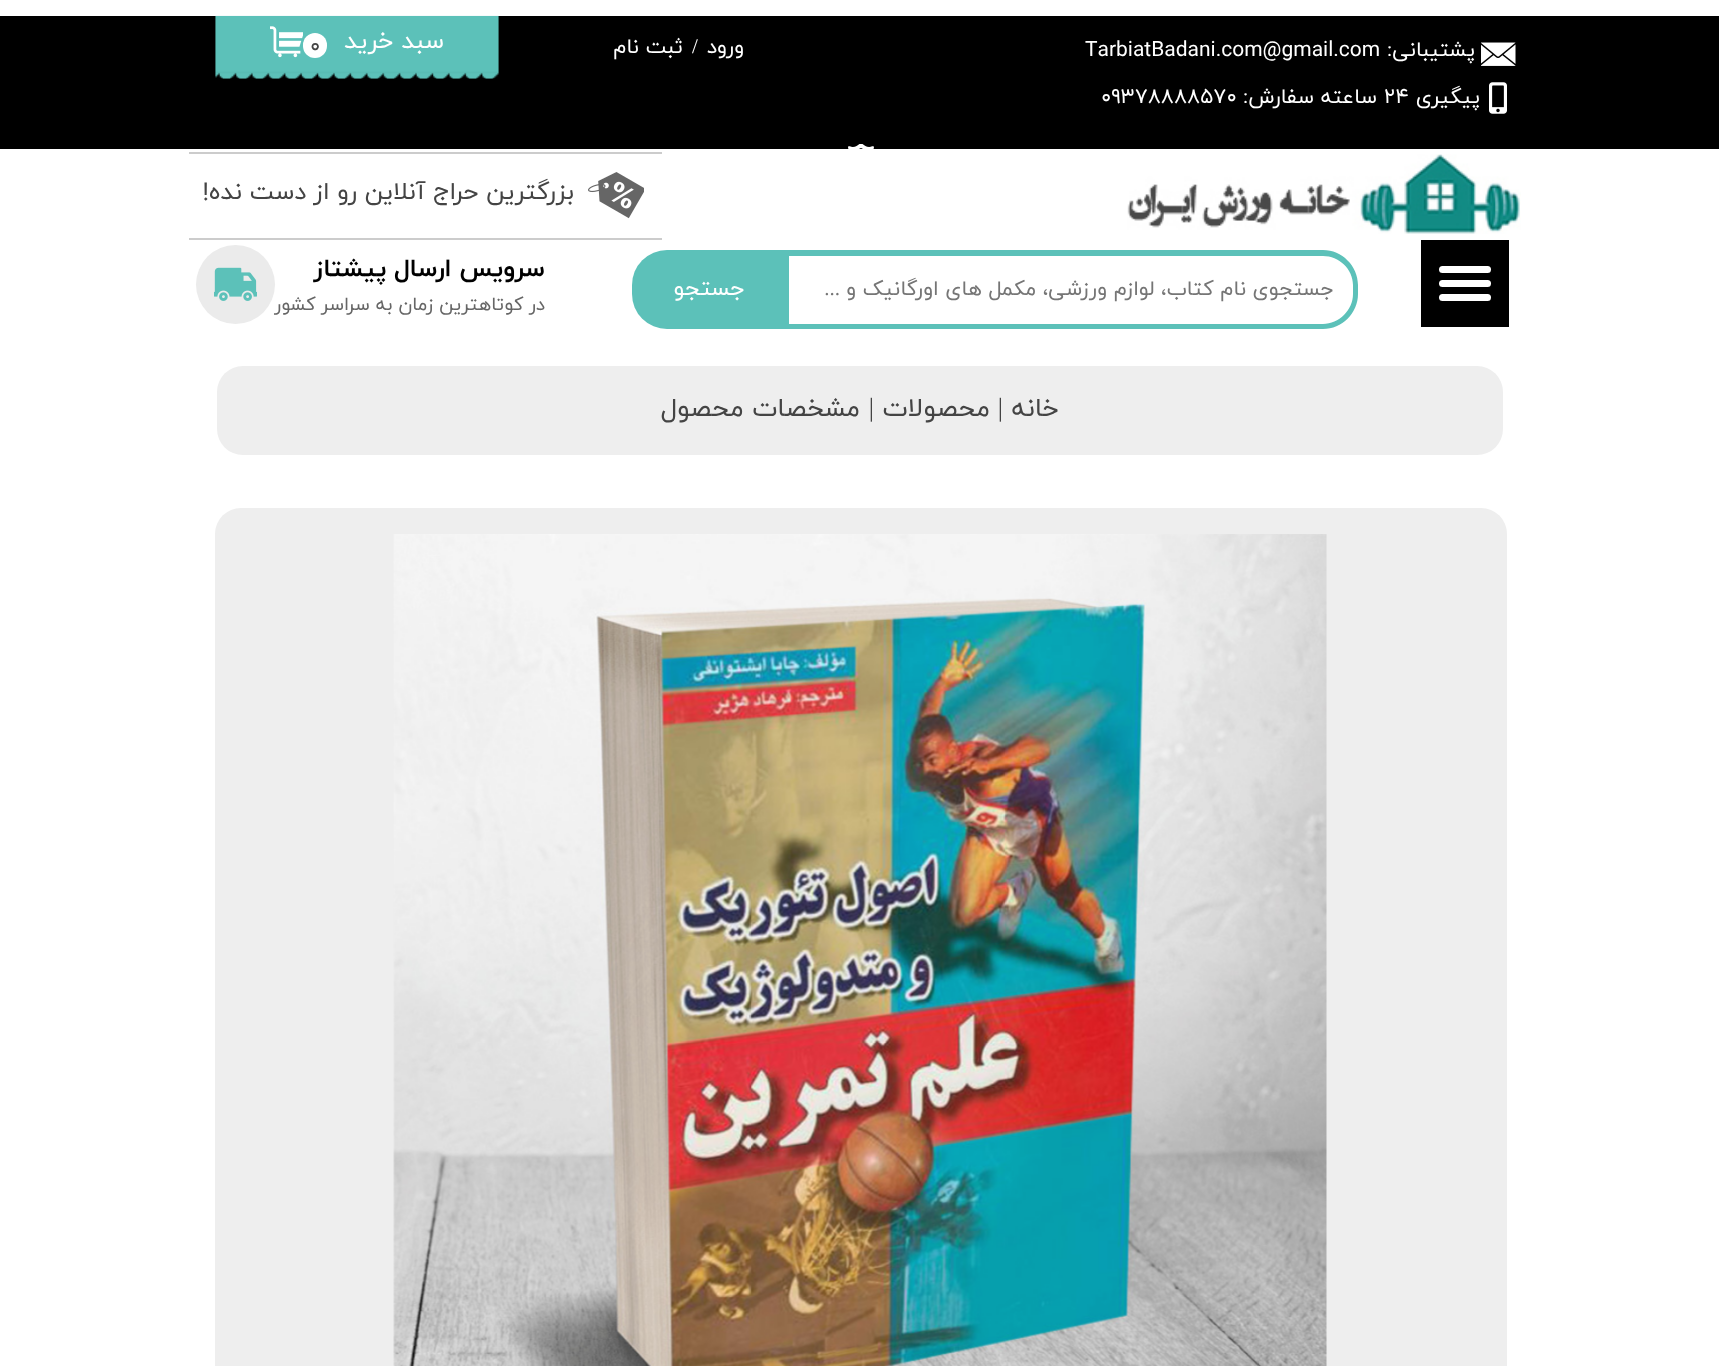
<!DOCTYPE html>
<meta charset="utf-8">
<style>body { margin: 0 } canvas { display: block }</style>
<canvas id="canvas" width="1719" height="1366"></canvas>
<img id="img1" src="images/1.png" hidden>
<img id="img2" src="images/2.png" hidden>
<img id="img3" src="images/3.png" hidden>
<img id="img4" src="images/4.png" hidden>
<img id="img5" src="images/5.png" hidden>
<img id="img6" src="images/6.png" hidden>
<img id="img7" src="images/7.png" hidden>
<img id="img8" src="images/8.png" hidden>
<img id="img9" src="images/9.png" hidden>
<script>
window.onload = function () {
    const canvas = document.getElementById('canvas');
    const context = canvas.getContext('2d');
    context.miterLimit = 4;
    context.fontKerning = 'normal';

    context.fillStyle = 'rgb(255, 255, 255)';
    context.fillRect(0, 0, 1719, 1366);
    context.fillStyle = 'rgb(0, 0, 0)';
    context.fillRect(0, 16, 1719, 133);
    context.drawImage(document.getElementById('img1'), 1481, 42, 35, 24);
    context.drawImage(document.getElementById('img2'), 215, 15, 284, 64);
    context.fillStyle = 'rgb(255, 255, 255)';
    context.beginPath();
    context.roundRect(303, 33, 24, 25, 12);
    context.fill();
    context.drawImage(document.getElementById('img3'), 270, 26, 33, 32);
    context.drawImage(document.getElementById('img4'), 1489, 82, 18, 32);
    context.drawImage(document.getElementById('img5'), 848, 144, 26, 5);
    context.drawImage(document.getElementById('img6'), 1127, 154, 394, 80);
    context.fillStyle = 'rgb(204, 204, 204)';
    context.fillRect(189, 152, 473, 2);
    context.drawImage(document.getElementById('img7'), 588, 172, 56, 47);
    context.fillRect(189, 238, 473, 2);
    context.fillStyle = 'rgb(0, 0, 0)';
    context.fillRect(1421, 240, 88, 87);
    context.fillStyle = 'rgb(255, 255, 255)';
    context.beginPath();
    context.roundRect(1439, 266, 52, 7, 3.5);
    context.fill();
    context.beginPath();
    context.roundRect(1439, 280, 52, 7, 3.5);
    context.fill();
    context.beginPath();
    context.roundRect(1439, 294, 52, 7, 3.5);
    context.fill();
    context.fillStyle = 'rgb(92, 193, 185)';
    context.beginPath();
    context.moveTo(789, 250);
    context.lineTo(1323, 250);
    context.bezierCurveTo(1342, 250, 1358, 266, 1358, 285);
    context.lineTo(1358, 294);
    context.bezierCurveTo(1358, 313, 1342, 329, 1323, 329);
    context.lineTo(789, 329);
    context.closePath();
    context.moveTo(789, 256);
    context.lineTo(1323, 256);
    context.bezierCurveTo(1339, 256, 1353, 269, 1353, 285);
    context.lineTo(1353, 294);
    context.bezierCurveTo(1353, 310, 1339, 324, 1323, 324);
    context.lineTo(789, 324);
    context.closePath();
    context.fill('evenodd');
    context.beginPath();
    context.roundRect(632, 250, 157, 79, [35, 0, 0, 35]);
    context.fill();
    context.fillStyle = 'rgb(235, 235, 235)';
    context.beginPath();
    context.arc(235.5, 284.5, 39.5, 0, 2 * Math.PI);
    context.fill();
    context.drawImage(document.getElementById('img8'), 214, 267, 43, 34);
    context.fillStyle = 'rgb(238, 238, 238)';
    context.beginPath();
    context.roundRect(217, 366, 1286, 89, 26);
    context.fill();
    context.beginPath();
    context.roundRect(215, 508, 1292, 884, 26);
    context.fill();
    context.drawImage(document.getElementById('img9'), 393, 534, 934, 832);
    context.direction = 'rtl';
    context.font = '21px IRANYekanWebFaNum';
    context.fillStyle = 'rgb(255, 255, 255)';
    context.fillText('پشتیبانی:', 1475, 56);
    context.direction = 'ltr';
    context.fillText('TarbiatBadani.com@gmail.com', 1085, 56);
    context.direction = 'rtl';
    context.font = '21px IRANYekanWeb';
    context.fillText('ورود', 744, 53);
    context.direction = 'ltr';
    context.font = '21px Liberation Serif';
    context.fillText('/', 692, 53);
    context.direction = 'rtl';
    context.font = '21px IRANYekanWeb';
    context.fillText('ثبت نام', 683, 53);
    context.font = '24.5px IRANYekanWeb';
    context.fillText('سبد خرید', 444, 48);
    context.direction = 'ltr';
    context.font = '21px IRANYekanWebFaNum';
    context.fillStyle = 'rgb(68, 68, 68)';
    context.fillText('۰', 310, 52);
    context.direction = 'rtl';
    context.fillStyle = 'rgb(255, 255, 255)';
    context.fillText('پیگیری', 1480, 103);
    context.direction = 'ltr';
    context.fillText('24', 1384, 103);
    context.direction = 'rtl';
    context.fillText('ساعته سفارش:', 1377, 103);
    context.direction = 'ltr';
    context.fillText('09378888570', 1101, 103);
    context.direction = 'rtl';
    context.font = '24.5px IRANYekanWebFaNum';
    context.fillStyle = 'rgb(68, 68, 68)';
    context.fillText('بزرگترین حراج آنلاین رو از دست نده!', 574, 199);
    context.font = '21px IRANYekanWeb';
    context.fillStyle = 'rgb(117, 117, 117)';
    context.fillText('جستجوی نام کتاب، لوازم ورزشی، مکمل های اورگانیک و', 1334, 295);
    context.font = '21px Liberation Serif';
    context.fillText('...', 840, 295);
    context.font = '23px IRANYekanWeb';
    context.fillStyle = 'rgb(255, 255, 255)';
    context.fillText('جستجو', 745, 295);
    context.font = 'bold 25.25px IRANYekanWeb';
    context.fillStyle = 'rgb(0, 0, 0)';
    context.fillText('سرویس ارسال پیشتاز', 545, 276);
    context.font = '18.9px IRANYekanWebFaNum';
    context.fillStyle = 'rgb(102, 102, 102)';
    context.fillText('در کوتاهترین زمان به سراسر کشور', 545, 310);
    context.font = '26.25px IRANYekanWeb';
    context.fillStyle = 'rgb(68, 68, 68)';
    context.fillText('خانه', 1059, 416);
    context.font = '26.25px Liberation Serif';
    context.fillText('|', 1003, 416);
    context.font = '26.25px IRANYekanWeb';
    context.fillText('محصولات', 990, 416);
    context.font = '26.25px Liberation Serif';
    context.fillText('|', 874, 416);
    context.font = '26.25px IRANYekanWeb';
    context.fillText('مشخصات محصول', 860, 416);
};
</script>
